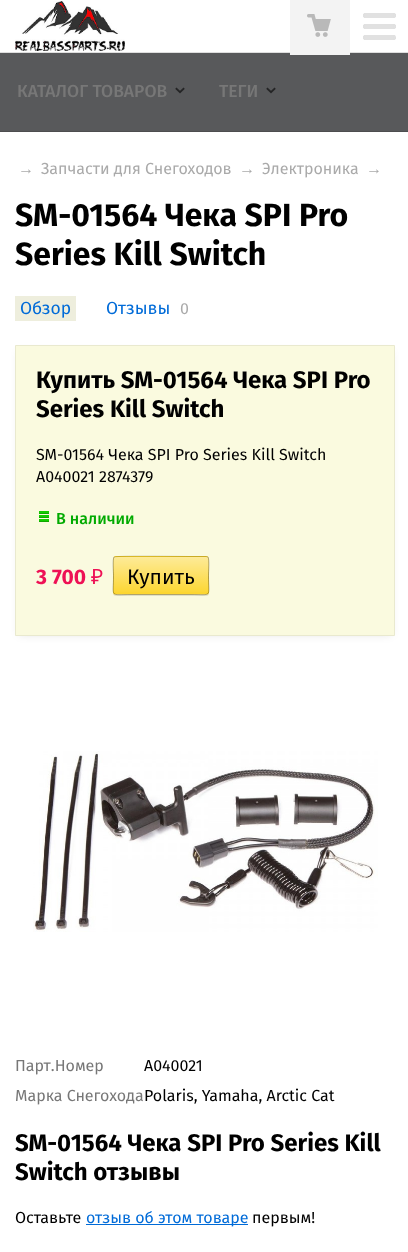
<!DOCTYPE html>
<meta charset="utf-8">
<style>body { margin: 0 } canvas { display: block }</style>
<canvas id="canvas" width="408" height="1252"></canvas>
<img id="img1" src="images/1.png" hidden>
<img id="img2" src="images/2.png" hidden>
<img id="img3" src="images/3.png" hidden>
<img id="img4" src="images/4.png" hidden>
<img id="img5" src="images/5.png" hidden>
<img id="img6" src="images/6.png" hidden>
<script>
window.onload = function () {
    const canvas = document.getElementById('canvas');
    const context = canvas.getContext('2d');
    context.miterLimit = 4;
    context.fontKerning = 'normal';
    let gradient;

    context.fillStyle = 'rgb(255, 255, 255)';
    context.fillRect(0, 0, 408, 1252);
    context.fillStyle = 'rgb(88, 89, 91)';
    context.fillRect(0, 53, 408, 78);
    context.fillStyle = 'rgb(222, 222, 222)';
    context.fillRect(0, 52, 408, 1);
    context.drawImage(document.getElementById('img1'), 15, 1, 110, 50);
    context.fillStyle = 'rgb(243, 243, 243)';
    context.fillRect(290, 0, 60, 55);
    context.drawImage(document.getElementById('img2'), 307, 14, 24, 23);
    context.drawImage(document.getElementById('img3'), 363, 13, 33, 27);
    context.fillStyle = 'rgb(77, 77, 79)';
    context.fillRect(0, 131, 408, 1);
    context.drawImage(document.getElementById('img4'), 175, 87, 10, 7);
    context.drawImage(document.getElementById('img4'), 266, 87, 10, 7);
    context.fillStyle = 'rgb(238, 238, 221)';
    context.fillRect(15, 296, 61, 25);
    context.fillStyle = 'rgba(0, 0, 0, 0.1)';
    context.filter = 'blur(4px)';
    context.beginPath();
    context.rect(19, 352, 372, 283);
    context.fill();
    context.filter = 'none';
    context.fillStyle = 'rgb(250, 250, 223)';
    context.beginPath();
    context.rect(15.5, 345.5, 379, 290);
    context.fill();
    context.strokeStyle = 'rgb(233, 233, 207)';
    context.stroke();
    context.drawImage(document.getElementById('img5'), 39, 511, 10, 11);
    context.fillStyle = 'rgba(0, 0, 0, 0.1)';
    context.filter = 'blur(0.5px)';
    context.beginPath();
    context.roundRect(113, 557, 96, 39, 3);
    context.fill();
    context.filter = 'none';
    context.fillStyle = 'rgb(252, 214, 48)';
    context.beginPath();
    context.roundRect(113, 556, 96, 39, 3);
    context.fill();
    gradient = context.createLinearGradient(161, 557, 161, 594);
    gradient.addColorStop(0, 'rgba(255, 255, 255, 0.5)');
    gradient.addColorStop(1, 'rgba(255, 255, 255, 0)');
    context.fillStyle = gradient;
    context.fillRect(113, 557, 96, 35);
    context.save();
    context.beginPath();
    context.roundRect(113, 556, 96, 39, 3);
    context.clip();
    gradient = context.createLinearGradient(161, 594, 161, 631);
    gradient.addColorStop(0, 'rgba(255, 255, 255, 0.5)');
    gradient.addColorStop(1, 'rgba(255, 255, 255, 0)');
    context.fillStyle = gradient;
    context.fillRect(113, 594, 96, 1);
    context.restore();
    context.beginPath();
    context.moveTo(114, 557);
    context.lineTo(114.5, 557);
    context.bezierCurveTo(116.5, 555.5, 183, 556.5, 191, 556.5);
    context.lineTo(206, 556.5);
    context.lineTo(208, 557);
    context.strokeStyle = 'rgba(0, 0, 0, 0.2)';
    context.stroke();
    context.beginPath();
    context.moveTo(208, 557);
    context.bezierCurveTo(209.5, 559, 208.5, 572.5, 208.5, 575.5);
    context.bezierCurveTo(208.5, 598, 213, 594.5, 191, 594.5);
    context.lineTo(131, 594.5);
    context.bezierCurveTo(109, 594.5, 113.5, 598, 113.5, 575.5);
    context.bezierCurveTo(113.5, 572.5, 112.5, 559, 114, 557);
    context.strokeStyle = 'rgba(0, 0, 0, 0.3)';
    context.stroke();
    context.drawImage(document.getElementById('img6'), 33, 751, 345, 181);
    context.fillStyle = 'rgb(0, 107, 216)';
    context.fillRect(86, 1224, 162, 1);
    context.font = '500 17.5px Fira Sans';
    context.fillStyle = 'rgb(119, 119, 119)';
    context.fillText('КАТАЛОГ ТОВАРОВ', 17, 97);
    context.fillText('ТЕГИ', 219, 97);
    context.font = '16px Liberation Sans';
    context.fillStyle = 'rgb(170, 170, 170)';
    context.fillText('→', 18, 174);
    context.font = '16px Fira Sans';
    context.fillText('Запчасти для Снегоходов', 41, 174);
    context.font = '16px Liberation Sans';
    context.fillText('→', 239, 174);
    context.font = '16px Fira Sans';
    context.fillText('Электроника', 262, 174);
    context.font = '16px Liberation Sans';
    context.fillText('→', 366, 174);
    context.font = 'bold 32px Fira Sans';
    context.fillStyle = 'rgb(0, 0, 0)';
    context.fillText('SM-01564 Чека SPI Pro', 15, 226);
    context.fillText('Series Kill Switch', 15, 265);
    context.font = '17.5px Fira Sans';
    context.fillStyle = 'rgb(0, 107, 216)';
    context.fillText('Обзор', 20, 314);
    context.fillText('Отзывы', 106, 314);
    context.font = '16px Fira Sans';
    context.fillStyle = 'rgb(170, 170, 170)';
    context.fillText('0', 180, 314);
    context.font = 'bold 24px Fira Sans';
    context.fillStyle = 'rgb(0, 0, 0)';
    context.fillText('Купить SM-01564 Чека SPI Pro', 36, 388);
    context.fillText('Series Kill Switch', 36, 417);
    context.font = '16px Fira Sans';
    context.fillText('SM-01564 Чека SPI Pro Series Kill Switch', 36, 460);
    context.fillText('A040021 2874379', 36, 482);
    context.font = '500 16px Fira Sans';
    context.fillStyle = 'rgb(0, 170, 0)';
    context.fillText('В наличии', 56, 524);
    context.font = 'bold 21px Fira Sans';
    context.fillStyle = 'rgb(238, 17, 85)';
    context.fillText('3 700', 36, 584);
    context.font = '21px Noto Sans';
    context.fillText('₽', 91, 584);
    context.font = '21px Fira Sans';
    context.fillStyle = 'rgb(0, 0, 0)';
    context.fillText('Купить', 127, 584);
    context.font = '16px Fira Sans';
    context.fillStyle = 'rgb(119, 119, 119)';
    context.fillText('Парт.Номер', 15, 1071);
    context.fillStyle = 'rgb(0, 0, 0)';
    context.fillText('A040021', 144, 1071);
    context.fillStyle = 'rgb(119, 119, 119)';
    context.fillText('Марка Снегохода', 15, 1101);
    context.fillStyle = 'rgb(0, 0, 0)';
    context.fillText('Polaris, Yamaha, Arctic Cat', 144, 1101);
    context.font = 'bold 24px Fira Sans';
    context.fillText('SM-01564 Чека SPI Pro Series Kill', 15, 1151);
    context.fillText('Switch отзывы', 15, 1180);
    context.font = '16px Fira Sans';
    context.fillText('Оставьте', 15, 1223);
    context.fillStyle = 'rgb(0, 107, 216)';
    context.fillText('отзыв об этом товаре', 86, 1223);
    context.fillStyle = 'rgb(0, 0, 0)';
    context.fillText('первым!', 252, 1223);
};
</script>
